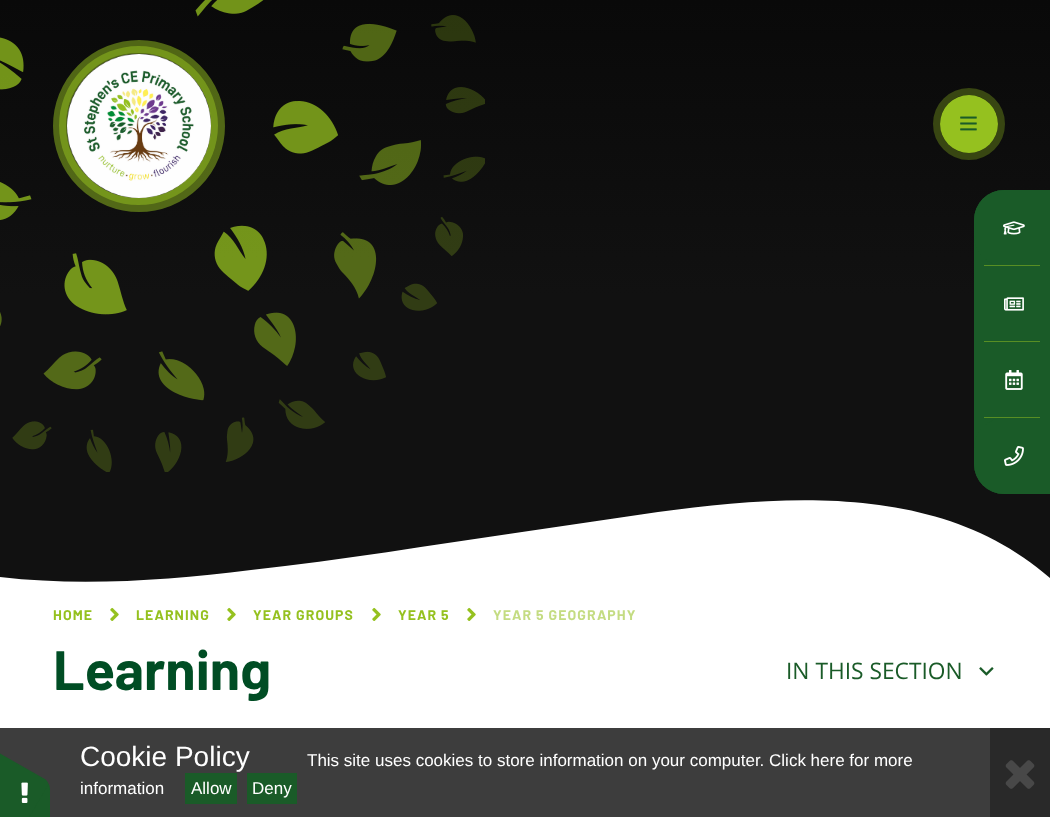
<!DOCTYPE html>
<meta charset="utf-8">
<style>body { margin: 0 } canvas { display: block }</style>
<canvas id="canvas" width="1050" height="817"></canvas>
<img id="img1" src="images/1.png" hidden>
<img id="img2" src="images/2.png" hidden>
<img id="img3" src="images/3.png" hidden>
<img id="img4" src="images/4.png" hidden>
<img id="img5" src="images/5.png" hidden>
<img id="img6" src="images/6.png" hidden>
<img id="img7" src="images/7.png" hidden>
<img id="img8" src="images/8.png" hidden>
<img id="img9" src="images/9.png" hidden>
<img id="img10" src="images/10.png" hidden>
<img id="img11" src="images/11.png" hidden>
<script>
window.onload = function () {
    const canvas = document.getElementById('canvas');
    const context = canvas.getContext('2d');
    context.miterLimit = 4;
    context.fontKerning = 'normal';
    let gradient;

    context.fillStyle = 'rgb(255, 255, 255)';
    context.fillRect(0, 0, 1050, 817);
    context.fillStyle = 'rgb(61, 61, 61)';
    context.fillRect(0, 728, 990, 89);
    gradient = context.createLinearGradient(525, 0, 525, 588);
    gradient.addColorStop(0, 'rgb(9, 9, 9)');
    gradient.addColorStop(0.5, 'rgb(17, 17, 17)');
    gradient.addColorStop(1, 'rgb(17, 17, 17)');
    context.fillStyle = gradient;
    context.fillRect(0, 0, 1050, 582);
    context.fillStyle = 'rgb(26, 91, 40)';
    context.beginPath();
    context.roundRect(974, 190, 76, 76, [30, 0, 0, 0]);
    context.fill();
    context.beginPath();
    context.roundRect(974, 190, 76, 76, [30, 0, 0, 30]);
    context.fill();
    context.drawImage(document.getElementById('img1'), 1003, 221, 22, 14);
    context.fillStyle = 'rgb(88, 142, 36)';
    context.fillRect(984, 265, 56, 1);
    context.fillStyle = 'rgb(26, 91, 40)';
    context.fillRect(974, 266, 76, 152);
    context.drawImage(document.getElementById('img2'), 1004, 297, 20, 14);
    context.fillStyle = 'rgb(88, 142, 36)';
    context.fillRect(984, 341, 56, 1);
    context.drawImage(document.getElementById('img3'), 1005, 370, 18, 20);
    context.fillRect(984, 417, 56, 1);
    context.fillStyle = 'rgb(26, 91, 40)';
    context.beginPath();
    context.roundRect(974, 418, 76, 76, [0, 0, 0, 30]);
    context.fill();
    context.beginPath();
    context.roundRect(974, 418, 76, 76, [30, 0, 0, 30]);
    context.fill();
    context.drawImage(document.getElementById('img4'), 1004, 446, 20, 20);
    context.fillStyle = 'rgb(255, 255, 255)';
    context.beginPath();
    context.moveTo(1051, 589);
    context.lineTo(-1, 589);
    context.lineTo(-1, 577);
    context.bezierCurveTo(83, 587, 168, 580, 251, 570);
    context.bezierCurveTo(342, 560, 432, 545, 522, 532);
    context.lineTo(658, 512);
    context.bezierCurveTo(790, 494, 945, 484, 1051, 579);
    context.closePath();
    context.fill();
    context.beginPath();
    context.arc(139, 126, 79, 0, 2 * Math.PI);
    context.strokeStyle = 'rgba(149, 193, 31, 0.5)';
    context.lineWidth = 14;
    context.stroke();
    context.drawImage(document.getElementById('img5'), 0, 0, 485, 472);
    context.drawImage(document.getElementById('img6'), 67, 54, 144, 144);
    context.beginPath();
    context.arc(138.5, 125.5, 76, 0, 2 * Math.PI);
    context.lineWidth = 7;
    context.stroke();
    context.beginPath();
    context.arc(969, 124, 32.5, 0, 2 * Math.PI);
    context.strokeStyle = 'rgb(56, 70, 18)';
    context.stroke();
    context.fillStyle = 'rgb(149, 193, 31)';
    context.beginPath();
    context.arc(969, 124, 29, 0, 2 * Math.PI);
    context.fill();
    context.drawImage(document.getElementById('img7'), 960, 116, 17, 15);
    context.drawImage(document.getElementById('img8'), 110, 607, 9, 14);
    context.drawImage(document.getElementById('img8'), 227, 607, 9, 14);
    context.drawImage(document.getElementById('img8'), 372, 607, 9, 14);
    context.drawImage(document.getElementById('img8'), 467, 607, 9, 14);
    context.drawImage(document.getElementById('img9'), 979, 667, 15, 9);
    context.fillStyle = 'rgb(59, 59, 59)';
    context.fillRect(990, 732, 8, 1);
    context.fillStyle = 'rgb(26, 91, 40)';
    context.beginPath();
    context.moveTo(50, 790);
    context.lineTo(50, 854);
    context.bezierCurveTo(50, 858, 48, 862, 46, 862);
    context.lineTo(-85, 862);
    context.bezierCurveTo(-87, 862, -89, 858, -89, 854);
    context.lineTo(-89, 790);
    context.bezierCurveTo(-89, 785, -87, 782, -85, 782);
    context.lineTo(46, 782);
    context.bezierCurveTo(48, 782, 50, 785, 50, 790);
    context.closePath();
    context.fill();
    context.beginPath();
    context.moveTo(-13, 746);
    context.lineTo(43, 778);
    context.bezierCurveTo(47, 780, 49, 783, 48, 785);
    context.lineTo(-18, 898);
    context.bezierCurveTo(-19, 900, -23, 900, -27, 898);
    context.lineTo(-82, 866);
    context.bezierCurveTo(-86, 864, -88, 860, -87, 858);
    context.lineTo(-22, 745);
    context.bezierCurveTo(-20, 743, -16, 744, -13, 746);
    context.closePath();
    context.fill();
    context.drawImage(document.getElementById('img10'), 21, 782, 7, 21);
    context.fillRect(185, 773, 52, 31);
    context.fillRect(247, 773, 50, 31);
    context.fillStyle = 'rgb(41, 41, 41)';
    context.fillRect(990, 728, 60, 89);
    context.drawImage(document.getElementById('img11'), 1005, 760, 30, 29);
    context.letterSpacing = '1.1px';
    context.font = 'bold 14px Barlow';
    context.fillStyle = 'rgb(149, 193, 31)';
    context.fillText('HOME', 53, 620);
    context.fillText('LEARNING', 136, 620);
    context.fillText('YEAR GROUPS', 253, 620);
    context.fillText('YEAR 5', 398, 620);
    context.fillStyle = 'rgb(196, 220, 130)';
    context.fillText('YEAR 5 GEOGRAPHY', 493, 620);
    context.letterSpacing = '0px';
    context.font = 'bold 55.5px Barlow';
    context.fillStyle = 'rgb(0, 77, 36)';
    context.fillText('Learning', 53, 690);
    context.font = '22.75px Open Sans';
    context.fillStyle = 'rgb(26, 91, 40)';
    context.fillText('IN THIS SECTION', 786, 679);
    context.font = '28px Liberation Sans';
    context.fillStyle = 'rgb(255, 255, 255)';
    context.fillText('Cookie Policy', 80, 766);
    context.font = '17px Liberation Sans';
    context.fillText('This site uses cookies to store information on your computer. Click here for more', 307, 766);
    context.fillText('information', 80, 794);
    context.fillText('Allow', 191, 794);
    context.fillText('Deny', 252, 794);
};
</script>
